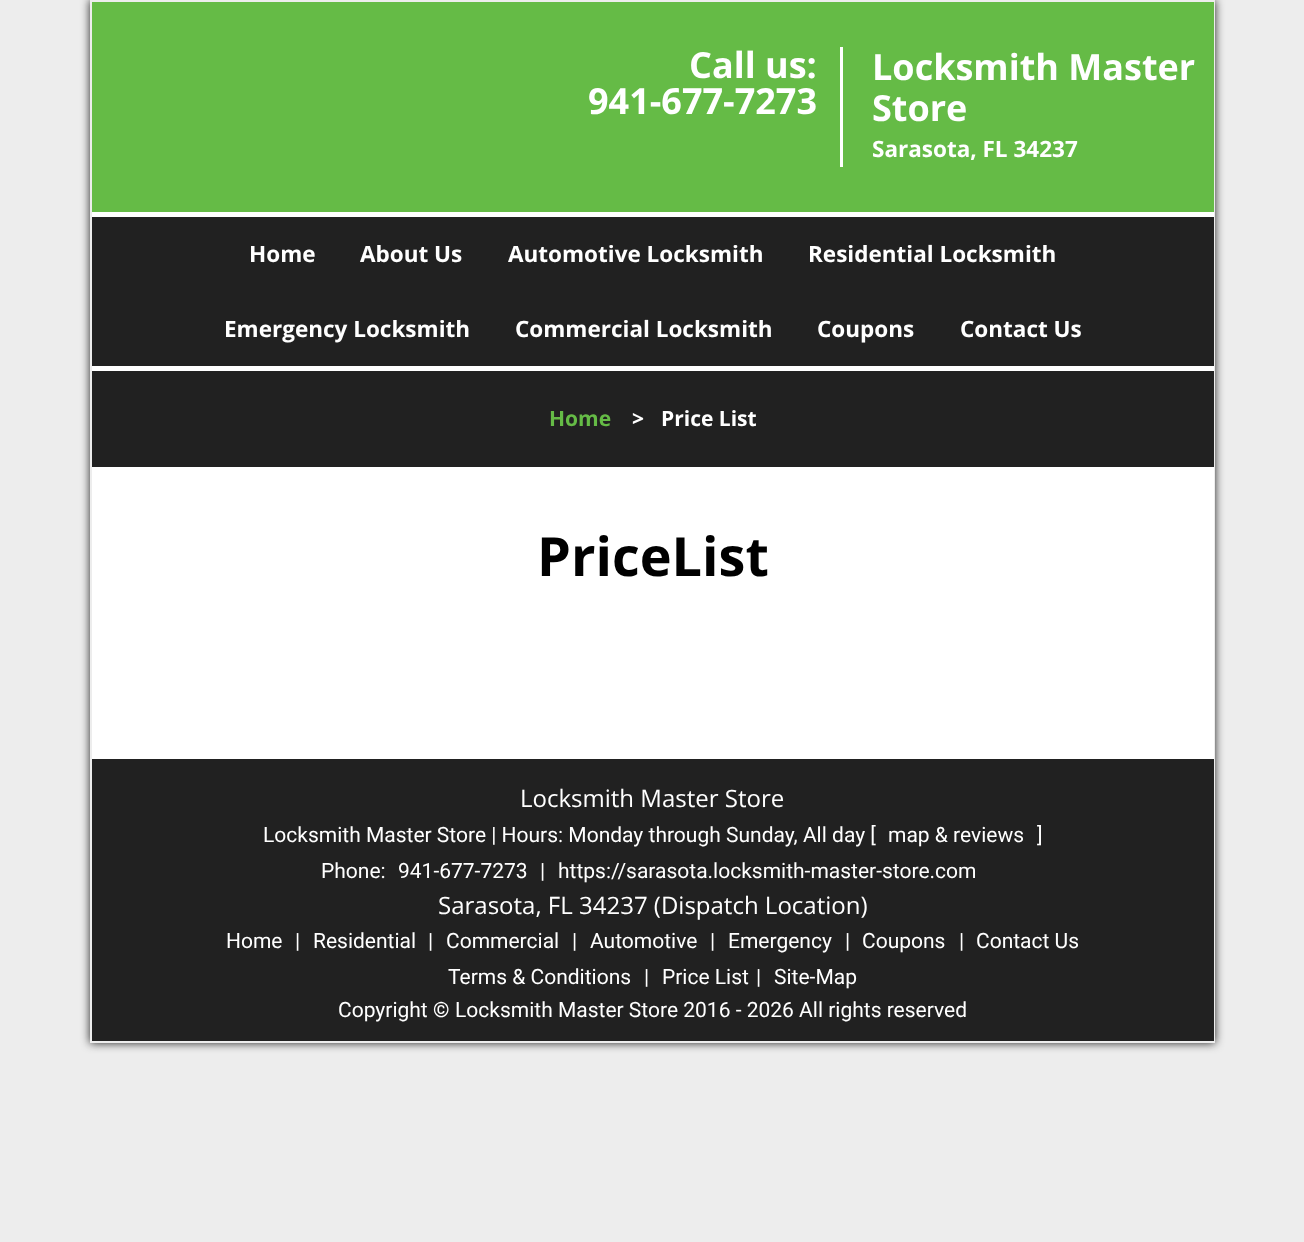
<!DOCTYPE html>
<meta charset="utf-8">
<style>body { margin: 0 } canvas { display: block }</style>
<canvas id="canvas" width="1304" height="1242"></canvas>
<script>
window.onload = function () {
    const canvas = document.getElementById('canvas');
    const context = canvas.getContext('2d');
    context.miterLimit = 4;
    context.fontKerning = 'normal';

    context.fillStyle = 'rgb(237, 237, 237)';
    context.fillRect(0, 0, 1304, 1242);
    context.fillStyle = 'rgb(33, 33, 33)';
    context.filter = 'blur(5px)';
    context.beginPath();
    context.rect(90, 0, 1125, 1043);
    context.fill();
    context.filter = 'none';
    context.strokeStyle = 'rgb(237, 237, 237)';
    context.lineWidth = 2;
    context.strokeRect(91, 1, 1123, 1041);
    context.fillStyle = 'rgb(101, 187, 70)';
    context.fillRect(92, 2, 1122, 210);
    context.fillStyle = 'rgb(255, 255, 255)';
    context.fillRect(840, 47, 3, 120);
    context.fillStyle = 'rgb(33, 33, 33)';
    context.fillRect(92, 217, 1122, 149);
    context.fillStyle = 'rgb(255, 255, 255)';
    context.fillRect(92, 212, 1122, 5);
    context.fillRect(92, 366, 1122, 5);
    context.fillStyle = 'rgb(33, 33, 33)';
    context.fillRect(92, 371, 1122, 96);
    context.fillStyle = 'rgb(255, 255, 255)';
    context.fillRect(92, 467, 1122, 292);
    context.fillStyle = 'rgb(33, 33, 33)';
    context.fillRect(92, 759, 1122, 282);
    context.font = 'bold 36px Open Sans';
    context.fillStyle = 'rgb(255, 255, 255)';
    context.fillText('Call us:', 689, 78);
    context.fillText('941-677-7273', 588, 114);
    context.fillText('Locksmith Master', 872, 80);
    context.fillText('Store', 872, 121);
    context.font = 'bold 22.5px Open Sans';
    context.fillText('Sarasota, FL 34237', 872, 157);
    context.fillText('Home', 249, 262);
    context.fillText('About Us', 360, 262);
    context.fillText('Automotive Locksmith', 508, 262);
    context.fillText('Residential Locksmith', 808, 262);
    context.fillText('Emergency Locksmith', 224, 337);
    context.fillText('Commercial Locksmith', 515, 337);
    context.fillText('Coupons', 817, 337);
    context.fillText('Contact Us', 960, 337);
    context.font = 'bold 21px Open Sans';
    context.fillStyle = 'rgb(101, 187, 70)';
    context.fillText('Home', 549, 426);
    context.fillStyle = 'rgb(255, 255, 255)';
    context.fillText('>', 632, 426);
    context.fillText('Price List', 661, 426);
    context.font = 'bold 54px Open Sans';
    context.fillStyle = 'rgb(0, 0, 0)';
    context.fillText('PriceList', 537, 576);
    context.font = '24px Open Sans';
    context.fillStyle = 'rgb(255, 255, 255)';
    context.fillText('Locksmith Master Store', 520, 807);
    context.font = '21px Roboto';
    context.fillText('Locksmith Master Store | Hours: Monday through Sunday, All day [', 263, 842);
    context.fillText('map & reviews', 888, 842);
    context.fillText(']', 1037, 842);
    context.fillText('Phone:', 321, 878);
    context.fillText('941-677-7273', 398, 878);
    context.fillText('|', 540, 878);
    context.fillText('https://sarasota.locksmith-master-store.com', 558, 878);
    context.font = '24px Open Sans';
    context.fillText('Sarasota, FL 34237 (Dispatch Location)', 438, 914);
    context.font = '21px Roboto';
    context.fillText('Home', 226, 948);
    context.fillText('|', 295, 948);
    context.fillText('Residential', 313, 948);
    context.fillText('|', 428, 948);
    context.fillText('Commercial', 446, 948);
    context.fillText('|', 572, 948);
    context.fillText('Automotive', 590, 948);
    context.fillText('|', 710, 948);
    context.fillText('Emergency', 728, 948);
    context.fillText('|', 845, 948);
    context.fillText('Coupons', 862, 948);
    context.fillText('|', 959, 948);
    context.fillText('Contact Us', 976, 948);
    context.fillText('Terms & Conditions', 448, 984);
    context.fillText('|', 644, 984);
    context.fillText('Price List', 662, 984);
    context.fillText('|', 756, 984);
    context.fillText('Site-Map', 774, 984);
    context.fillText('Copyright', 338, 1017);
    context.font = 'bold 21px Roboto';
    context.fillText('©', 433, 1017);
    context.font = '21px Roboto';
    context.fillText('Locksmith Master Store 2016 - 2026 All rights reserved', 455, 1017);
};
</script>
